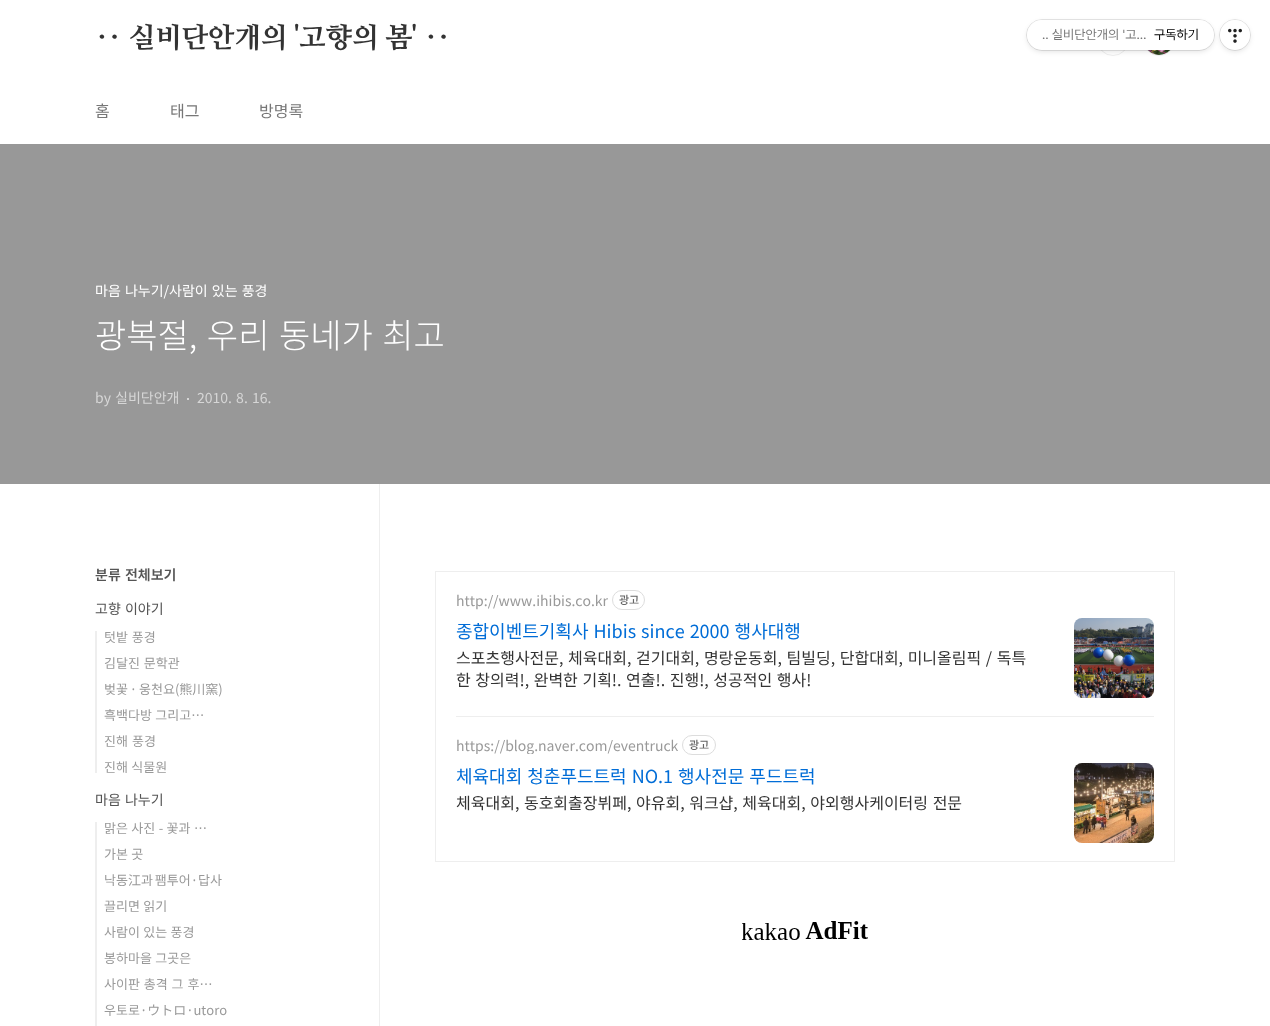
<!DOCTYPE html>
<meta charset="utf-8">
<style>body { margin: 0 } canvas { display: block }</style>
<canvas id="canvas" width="1270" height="1026"></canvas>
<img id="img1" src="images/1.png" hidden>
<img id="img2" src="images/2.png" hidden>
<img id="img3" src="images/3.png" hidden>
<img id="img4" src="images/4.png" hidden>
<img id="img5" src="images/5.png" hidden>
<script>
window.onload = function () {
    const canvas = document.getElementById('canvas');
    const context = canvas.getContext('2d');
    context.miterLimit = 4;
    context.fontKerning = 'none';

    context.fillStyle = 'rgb(255, 255, 255)';
    context.fillRect(0, 0, 1270, 1026);
    context.beginPath();
    context.arc(1113, 40, 14.5, 0, 2 * Math.PI);
    context.strokeStyle = 'rgb(238, 238, 238)';
    context.stroke();
    context.beginPath();
    context.arc(1113, 40, 15.5, 0, 2 * Math.PI);
    context.fill();
    context.stroke();
    context.beginPath();
    context.arc(1159, 40, 15.5, 0, 2 * Math.PI);
    context.stroke();
    context.drawImage(document.getElementById('img1'), 1148, 50, 22, 5);
    context.fillStyle = 'rgb(152, 152, 152)';
    context.fillRect(0, 144, 1270, 340);
    context.fillStyle = 'rgb(214, 214, 214)';
    context.fillRect(187, 398, 2, 2);
    context.strokeRect(435.5, 571.5, 739, 290);
    context.beginPath();
    context.roundRect(612.5, 590.5, 32, 19, 9.5);
    context.strokeStyle = 'rgb(221, 221, 221)';
    context.stroke();
    context.drawImage(document.getElementById('img2'), 1074, 618, 80, 80);
    context.fillStyle = 'rgb(238, 238, 238)';
    context.fillRect(456, 716, 698, 1);
    context.beginPath();
    context.roundRect(682.5, 735.5, 33, 19, 9.5);
    context.stroke();
    context.drawImage(document.getElementById('img3'), 1074, 763, 80, 80);
    context.drawImage(document.getElementById('img4'), 742, 921, 126, 19);
    context.fillRect(95, 631, 2, 142);
    context.fillRect(95, 822, 2, 204);
    context.fillRect(379, 484, 1, 542);
    context.fillStyle = 'rgba(0, 0, 0, 0.1)';
    context.filter = 'blur(2.5px)';
    context.beginPath();
    context.roundRect(1220, 22, 30, 30, 15);
    context.fill();
    context.filter = 'none';
    context.beginPath();
    context.arc(1235, 35, 15.5, 0, 2 * Math.PI);
    context.strokeStyle = 'rgba(0, 0, 0, 0.1)';
    context.stroke();
    context.fillStyle = 'rgb(255, 255, 255)';
    context.beginPath();
    context.arc(1235, 35, 15, 0, 2 * Math.PI);
    context.fill();
    context.fillStyle = 'rgba(0, 0, 0, 0.1)';
    context.filter = 'blur(2.5px)';
    context.beginPath();
    context.roundRect(1027, 22, 187, 30, 15);
    context.fill();
    context.filter = 'none';
    context.beginPath();
    context.roundRect(1026.5, 19.5, 188, 31, 15.5);
    context.stroke();
    context.fillStyle = 'rgb(255, 255, 255)';
    context.beginPath();
    context.roundRect(1027, 20, 187, 30, 15);
    context.fill();
    context.drawImage(document.getElementById('img5'), 1228, 28, 14, 15);
    context.letterSpacing = '-0.25px';
    context.font = '800 28px NanumMyeongjo';
    context.fillStyle = 'rgb(51, 51, 51)';
    context.fillText('‥ 실비단안개의 \'고향의 봄\' ‥', 95, 47);
    context.letterSpacing = '0px';
    context.font = '16px Noto Sans KR';
    context.fillStyle = 'rgb(119, 119, 119)';
    context.fillText('홈', 95, 117);
    context.fillText('태그', 170, 117);
    context.fillText('방명록', 259, 117);
    context.wordSpacing = '1px';
    context.font = '14px Noto Sans KR';
    context.fillStyle = 'rgb(255, 255, 255)';
    context.fillText('마음 나누기/사람이 있는 풍경', 95, 296);
    context.wordSpacing = '2px';
    context.font = '300 34px Noto Sans KR';
    context.fillText('광복절, 우리 동네가 최고', 95, 348);
    context.wordSpacing = '1px';
    context.font = '14px Noto Sans KR';
    context.fillStyle = 'rgb(214, 214, 214)';
    context.fillText('by 실비단안개', 95, 403);
    context.fillText('2010. 8. 16.', 197, 403);
    context.wordSpacing = '0px';
    context.fillStyle = 'rgb(153, 153, 153)';
    context.fillText('http://www.ihibis.co.kr', 456, 606);
    context.font = '500 11px Noto Sans KR';
    context.fillStyle = 'rgb(102, 102, 102)';
    context.fillText('광고', 619, 604);
    context.wordSpacing = '1px';
    context.font = '18px Noto Sans KR';
    context.fillStyle = 'rgb(1, 109, 215)';
    context.fillText('종합이벤트기획사 Hibis since 2000 행사대행', 456, 638);
    context.font = '16px Noto Sans KR';
    context.fillStyle = 'rgb(51, 51, 51)';
    context.fillText('스포츠행사전문, 체육대회, 걷기대회, 명랑운동회, 팀빌딩, 단합대회, 미니올림픽 / 독특', 456, 664);
    context.fillText('한 창의력!, 완벽한 기획!. 연출!. 진행!, 성공적인 행사!', 456, 686);
    context.save();
    context.beginPath();
    context.rect(456, 737, 222, 17);
    context.clip();
    context.wordSpacing = '0px';
    context.font = '14px Noto Sans KR';
    context.fillStyle = 'rgb(153, 153, 153)';
    context.fillText('https://blog.naver.com/eventruck', 456, 751);
    context.restore();
    context.wordSpacing = '0px';
    context.font = '500 11px Noto Sans KR';
    context.fillStyle = 'rgb(102, 102, 102)';
    context.fillText('광고', 689, 749);
    context.wordSpacing = '1px';
    context.font = '18px Noto Sans KR';
    context.fillStyle = 'rgb(1, 109, 215)';
    context.fillText('체육대회 청춘푸드트럭 NO.1 행사전문 푸드트럭', 456, 783);
    context.font = '16px Noto Sans KR';
    context.fillStyle = 'rgb(51, 51, 51)';
    context.fillText('체육대회, 동호회출장뷔페, 야유회, 워크샵, 체육대회, 야외행사케이터링 전문', 456, 809);
    context.font = '600 14px Noto Sans KR';
    context.fillStyle = 'rgb(85, 85, 85)';
    context.fillText('분류 전체보기', 95, 580);
    context.font = '14px Noto Sans KR';
    context.fillText('고향 이야기', 95, 614);
    context.font = '13px Noto Sans KR';
    context.fillStyle = 'rgb(153, 153, 153)';
    context.fillText('텃밭 풍경', 104, 642);
    context.fillText('김달진 문학관', 104, 668);
    context.wordSpacing = '-1px';
    context.fillText('벚꽃 · 웅천요(熊川窯)', 104, 694);
    context.wordSpacing = '0.5px';
    context.fillText('흑백다방 그리고…', 104, 720);
    context.wordSpacing = '0px';
    context.fillText('진해', 104, 746);
    context.fillText('풍경', 132, 746);
    context.wordSpacing = '0.5px';
    context.fillText('진해 식물원', 104, 772);
    context.wordSpacing = '1px';
    context.font = '14px Noto Sans KR';
    context.fillStyle = 'rgb(85, 85, 85)';
    context.fillText('마음 나누기', 95, 805);
    context.wordSpacing = '0.5px';
    context.font = '13px Noto Sans KR';
    context.fillStyle = 'rgb(153, 153, 153)';
    context.fillText('맑은 사진 - 꽃과 …', 104, 833);
    context.fillText('가본 곳', 104, 859);
    context.wordSpacing = '-1px';
    context.fillText('낙동江과 팸투어·답사', 104, 885);
    context.wordSpacing = '0.5px';
    context.fillText('끌리면 읽기', 104, 911);
    context.fillText('사람이 있는 풍경', 104, 937);
    context.fillText('봉하마을 그곳은', 104, 963);
    context.wordSpacing = '1px';
    context.fillText('사이판 총격 그 후…', 104, 989);
    context.wordSpacing = '0px';
    context.fillText('우토로·ウトロ·utoro', 104, 1015);
    context.font = '13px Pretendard';
    context.fillStyle = 'rgb(119, 119, 119)';
    context.fillText('‥ 실비단안개의 \'고…', 1042, 39);
    context.fillStyle = 'rgb(0, 0, 0)';
    context.fillText('구독하기', 1154, 39);
};
</script>
